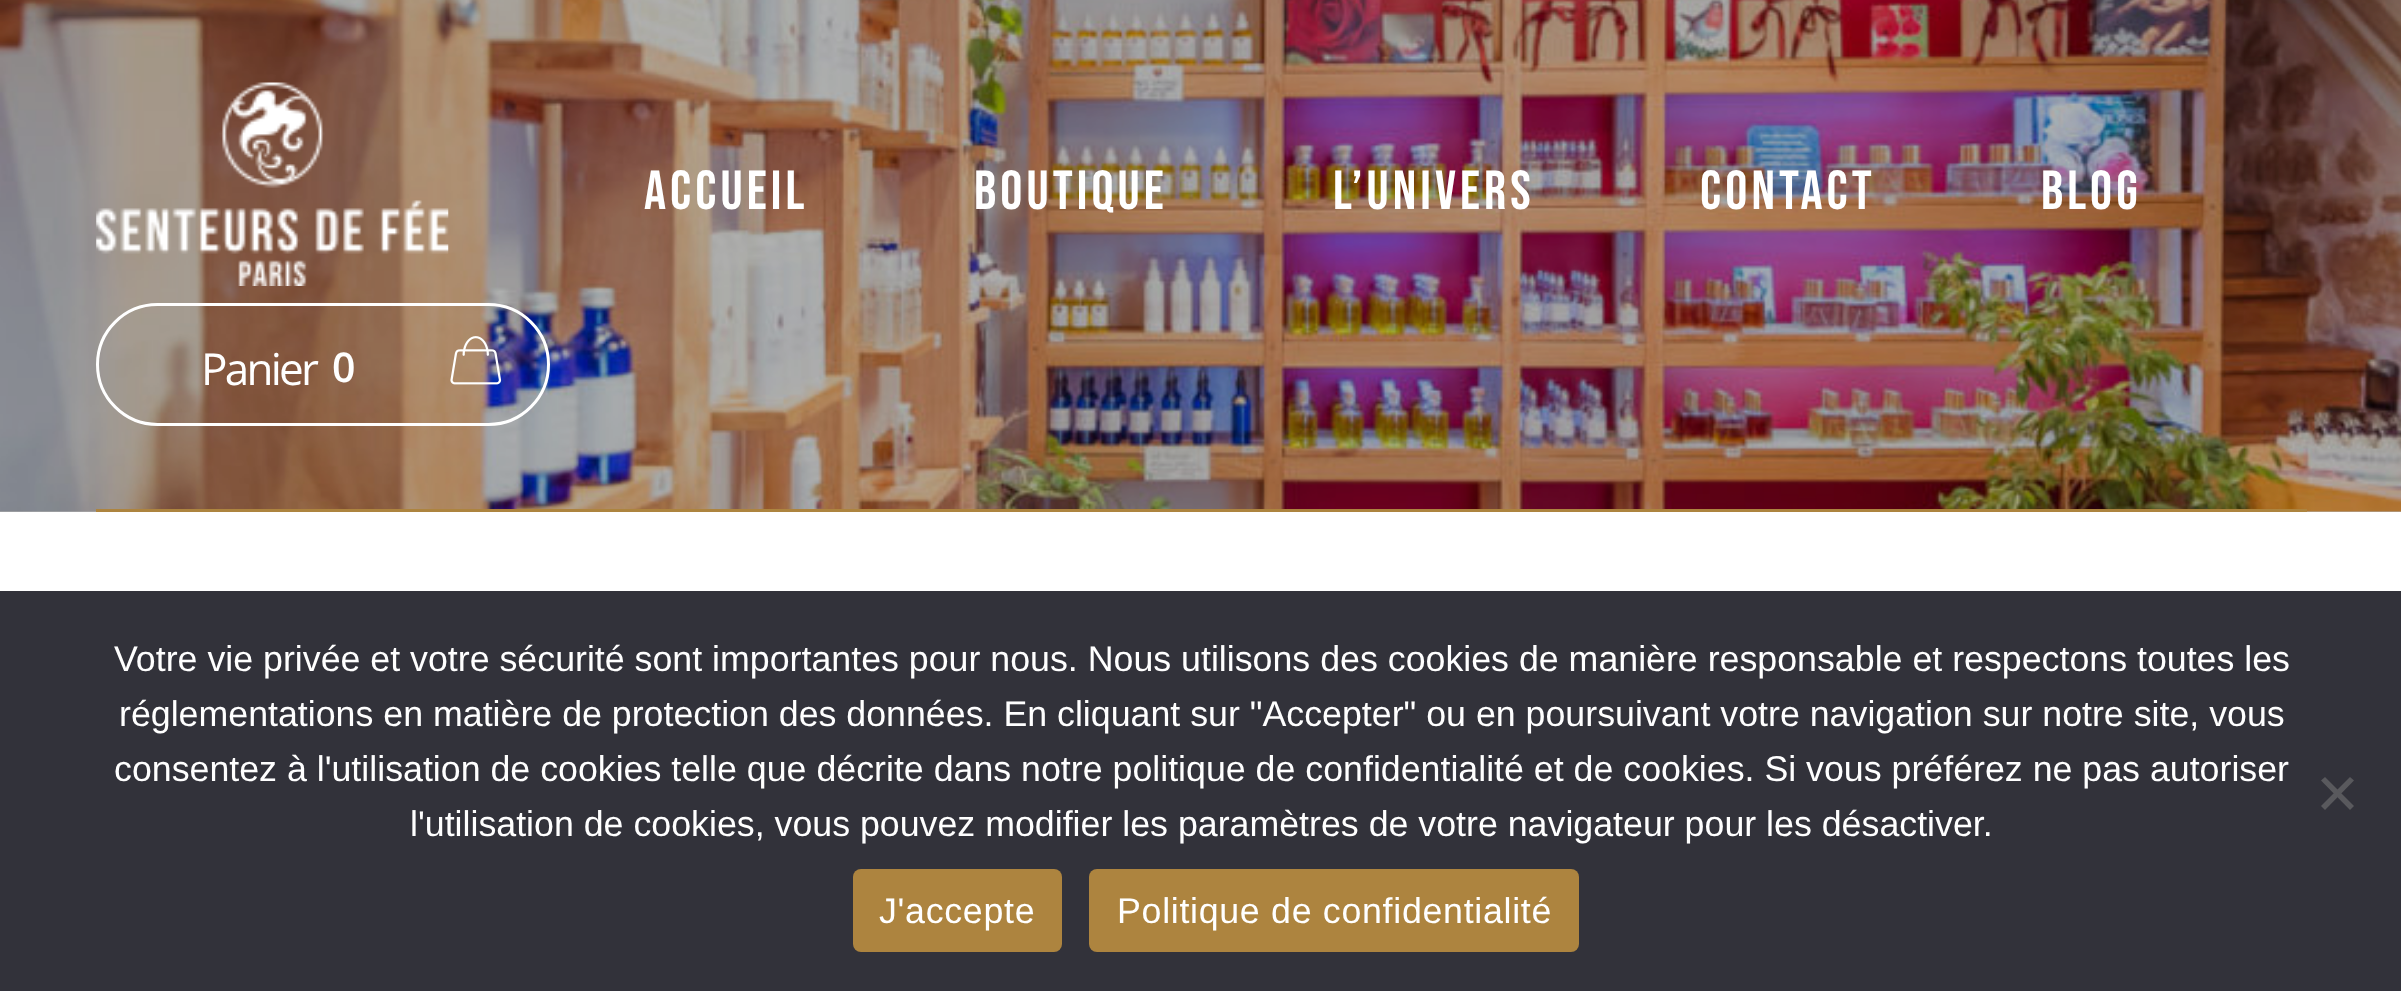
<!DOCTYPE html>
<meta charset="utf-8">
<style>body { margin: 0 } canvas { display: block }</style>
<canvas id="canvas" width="2401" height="991"></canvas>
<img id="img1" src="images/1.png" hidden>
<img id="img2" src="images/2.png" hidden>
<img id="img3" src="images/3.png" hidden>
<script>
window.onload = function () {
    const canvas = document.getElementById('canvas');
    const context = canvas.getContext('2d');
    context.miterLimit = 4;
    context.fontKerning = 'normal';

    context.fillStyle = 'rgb(255, 255, 255)';
    context.fillRect(0, 0, 2401, 991);
    context.fillStyle = 'rgb(179, 179, 179)';
    context.fillRect(0, 511, 2401, 1);
    context.drawImage(document.getElementById('img1'), 0, 0, 2401, 512);
    context.drawImage(document.getElementById('img2'), 96, 82, 353, 204);
    context.beginPath();
    context.roundRect(97.5, 304.5, 451, 120, 60);
    context.strokeStyle = 'rgb(255, 255, 255)';
    context.lineWidth = 3;
    context.stroke();
    context.drawImage(document.getElementById('img3'), 450, 336, 52, 49);
    context.fillStyle = 'rgb(173, 132, 63)';
    context.fillRect(96, 509, 2211, 3);
    context.fillStyle = 'rgb(50, 50, 58)';
    context.fillRect(0, 591, 2401, 400);
    context.fillStyle = 'rgb(89, 89, 93)';
    context.beginPath();
    context.moveTo(2350, 777);
    context.lineTo(2354, 780.5);
    context.lineTo(2325, 810);
    context.lineTo(2321, 806);
    context.closePath();
    context.fill();
    context.beginPath();
    context.moveTo(2321, 780.5);
    context.lineTo(2325, 777);
    context.lineTo(2354, 806);
    context.lineTo(2350, 810);
    context.closePath();
    context.fill();
    context.fillStyle = 'rgb(173, 132, 63)';
    context.beginPath();
    context.roundRect(853, 869, 209, 83, 8);
    context.fill();
    context.beginPath();
    context.roundRect(1089, 869, 490, 83, 8);
    context.fill();
    context.letterSpacing = '4.1px';
    context.font = '55px Bebas Neue';
    context.fillStyle = 'rgb(255, 255, 255)';
    context.fillText('Accueil', 644, 209);
    context.fillText('Boutique', 974, 209);
    context.fillText('L’univers', 1333, 209);
    context.fillText('Contact', 1700, 209);
    context.fillText('Blog', 2041, 209);
    context.letterSpacing = '-2.75px';
    context.font = '44px Open Sans';
    context.fillText('Panier', 201, 385);
    context.font = '600 41px Open Sans';
    context.fillText('0', 332, 382);
    context.letterSpacing = '0px';
    context.font = '35.75px Liberation Sans';
    context.fillText('Votre vie privée et votre sécurité sont importantes pour nous. Nous utilisons des cookies de manière responsable et respectons toutes les', 114, 671);
    context.fillText('réglementations en matière de protection des données. En cliquant sur "Accepter" ou en poursuivant votre navigation sur notre site, vous', 119, 726);
    context.fillText('consentez à l\'utilisation de cookies telle que décrite dans notre politique de confidentialité et de cookies. Si vous préférez ne pas autoriser', 114, 781);
    context.fillText('l\'utilisation de cookies, vous pouvez modifier les paramètres de votre navigateur pour les désactiver.', 410, 836);
    context.letterSpacing = '0.7px';
    context.fillText('J\'accepte', 879, 923);
    context.fillText('Politique de confidentialité', 1117, 923);
};
</script>
